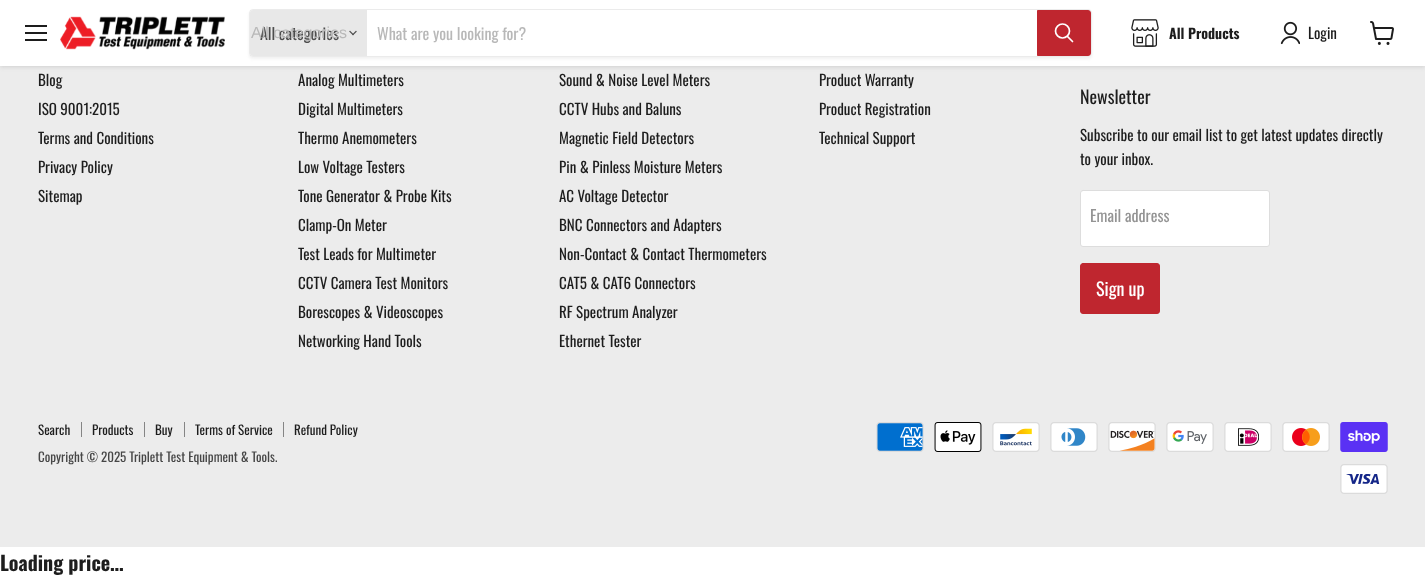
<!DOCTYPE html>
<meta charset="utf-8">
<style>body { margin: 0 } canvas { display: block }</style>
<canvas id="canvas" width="1425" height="577"></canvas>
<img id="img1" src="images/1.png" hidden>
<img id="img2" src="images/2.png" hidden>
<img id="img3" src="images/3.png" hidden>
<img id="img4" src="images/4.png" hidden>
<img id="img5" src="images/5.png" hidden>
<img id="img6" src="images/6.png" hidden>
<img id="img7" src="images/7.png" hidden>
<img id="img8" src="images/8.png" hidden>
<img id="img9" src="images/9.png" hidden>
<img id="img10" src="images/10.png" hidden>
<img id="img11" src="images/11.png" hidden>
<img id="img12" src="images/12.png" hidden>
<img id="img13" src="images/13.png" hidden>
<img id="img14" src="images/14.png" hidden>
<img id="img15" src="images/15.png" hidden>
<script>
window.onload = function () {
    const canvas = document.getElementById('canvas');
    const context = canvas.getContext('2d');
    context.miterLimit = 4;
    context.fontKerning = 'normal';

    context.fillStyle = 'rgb(255, 255, 255)';
    context.fillRect(0, 0, 1425, 577);
    context.fillStyle = 'rgb(236, 236, 236)';
    context.fillRect(0, 66, 1425, 481);
    context.fillStyle = 'rgba(128, 128, 128, 0.25)';
    context.filter = 'blur(2px)';
    context.beginPath();
    context.rect(0, 1, 1425, 66);
    context.fill();
    context.filter = 'none';
    context.fillStyle = 'rgb(255, 255, 255)';
    context.fillRect(0, 0, 1425, 66);
    context.fillStyle = 'rgb(29, 29, 29)';
    context.fillRect(25, 25, 22, 2);
    context.fillRect(25, 32, 22, 2);
    context.fillRect(25, 39, 22, 2);
    context.drawImage(document.getElementById('img1'), 60, 16, 165, 34);
    context.save();
    context.beginPath();
    context.moveTo(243, 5);
    context.lineTo(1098, 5);
    context.lineTo(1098, 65);
    context.lineTo(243, 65);
    context.closePath();
    context.moveTo(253, 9);
    context.lineTo(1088, 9);
    context.bezierCurveTo(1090, 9, 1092, 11, 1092, 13);
    context.lineTo(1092, 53);
    context.bezierCurveTo(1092, 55, 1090, 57, 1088, 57);
    context.lineTo(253, 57);
    context.bezierCurveTo(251, 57, 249, 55, 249, 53);
    context.lineTo(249, 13);
    context.bezierCurveTo(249, 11, 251, 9, 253, 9);
    context.closePath();
    context.clip('evenodd');
    context.fillStyle = 'rgba(128, 128, 128, 0.11)';
    context.filter = 'blur(1.5px)';
    context.beginPath();
    context.roundRect(249, 11, 843, 48, 4);
    context.fill();
    context.filter = 'none';
    context.restore();
    context.beginPath();
    context.roundRect(249.5, 9.5, 842, 47, 3.5);
    context.strokeStyle = 'rgba(128, 128, 128, 0.16)';
    context.stroke();
    context.fillStyle = 'rgb(232, 232, 232)';
    context.beginPath();
    context.roundRect(250, 10, 117, 46, [3, 0, 0, 3]);
    context.fill();
    context.drawImage(document.getElementById('img2'), 349, 30, 8, 6);
    context.fillStyle = 'rgb(191, 38, 47)';
    context.beginPath();
    context.roundRect(1037.5, 10.5, 53, 45, [0, 2.5, 2.5, 0]);
    context.fill();
    context.strokeStyle = 'rgb(191, 38, 47)';
    context.stroke();
    context.beginPath();
    context.moveTo(1072.5, 41.5);
    context.lineTo(1067.5, 36.5);
    context.strokeStyle = 'rgb(255, 255, 255)';
    context.lineWidth = 1.7;
    context.lineCap = 'round';
    context.stroke();
    context.beginPath();
    context.arc(1062.5, 31, 7, 0, 2 * Math.PI);
    context.stroke();
    context.drawImage(document.getElementById('img3'), 1131, 19, 28, 28);
    context.drawImage(document.getElementById('img4'), 1280, 21, 20, 24);
    context.drawImage(document.getElementById('img5'), 1370, 21, 24, 24);
    context.fillStyle = 'rgb(255, 255, 255)';
    context.beginPath();
    context.roundRect(1080.5, 190.5, 189, 56, 2.5);
    context.fill();
    context.strokeStyle = 'rgb(221, 221, 221)';
    context.lineWidth = 1;
    context.stroke();
    context.fillStyle = 'rgb(191, 38, 47)';
    context.beginPath();
    context.roundRect(1080.5, 263.5, 79, 50, 2.5);
    context.fill();
    context.strokeStyle = 'rgb(191, 38, 47)';
    context.stroke();
    context.fillStyle = 'rgb(133, 133, 133)';
    context.fillRect(81, 422, 1, 15);
    context.fillRect(144, 422, 1, 15);
    context.fillRect(184, 422, 1, 15);
    context.fillRect(283, 422, 1, 15);
    context.drawImage(document.getElementById('img6'), 876, 422, 48, 30);
    context.drawImage(document.getElementById('img7'), 934, 422, 48, 30);
    context.drawImage(document.getElementById('img8'), 992, 422, 48, 30);
    context.drawImage(document.getElementById('img9'), 1050, 422, 48, 30);
    context.drawImage(document.getElementById('img10'), 1108, 422, 48, 30);
    context.drawImage(document.getElementById('img11'), 1166, 422, 48, 30);
    context.drawImage(document.getElementById('img12'), 1224, 422, 48, 30);
    context.drawImage(document.getElementById('img13'), 1282, 422, 48, 30);
    context.drawImage(document.getElementById('img14'), 1340, 422, 48, 30);
    context.drawImage(document.getElementById('img15'), 1340, 464, 48, 30);
    context.font = '16px Oswald';
    context.fillStyle = 'rgb(77, 77, 77)';
    context.fillText('All categories', 260, 40);
    context.font = '16px Liberation Sans';
    context.fillStyle = 'rgb(184, 184, 184)';
    context.fillText('All categories', 251, 38);
    context.font = '16px Oswald';
    context.fillText('What are you looking for?', 377, 40);
    context.font = 'bold 14px Oswald';
    context.fillStyle = 'rgb(29, 29, 29)';
    context.fillText('All Products', 1169, 39);
    context.font = '15px Oswald';
    context.fillText('Login', 1308, 39);
    context.fillText('Blog', 38, 86);
    context.fillText('ISO 9001:2015', 38, 115);
    context.fillText('Terms and Conditions', 38, 144);
    context.fillText('Privacy Policy', 38, 173);
    context.fillText('Sitemap', 38, 202);
    context.fillText('Analog Multimeters', 298, 86);
    context.fillText('Digital Multimeters', 298, 115);
    context.fillText('Thermo Anemometers', 298, 144);
    context.fillText('Low Voltage Testers', 298, 173);
    context.fillText('Tone Generator & Probe Kits', 298, 202);
    context.fillText('Clamp-On Meter', 298, 231);
    context.fillText('Test Leads for Multimeter', 298, 260);
    context.fillText('CCTV Camera Test Monitors', 298, 289);
    context.fillText('Borescopes & Videoscopes', 298, 318);
    context.fillText('Networking Hand Tools', 298, 347);
    context.fillText('Sound & Noise Level Meters', 559, 86);
    context.fillText('CCTV Hubs and Baluns', 559, 115);
    context.fillText('Magnetic Field Detectors', 559, 144);
    context.fillText('Pin & Pinless Moisture Meters', 559, 173);
    context.fillText('AC Voltage Detector', 559, 202);
    context.fillText('BNC Connectors and Adapters', 559, 231);
    context.fillText('Non-Contact & Contact Thermometers', 559, 260);
    context.fillText('CAT5 & CAT6 Connectors', 559, 289);
    context.fillText('RF Spectrum Analyzer', 559, 318);
    context.fillText('Ethernet Tester', 559, 347);
    context.fillText('Product Warranty', 819, 86);
    context.fillText('Product Registration', 819, 115);
    context.fillText('Technical Support', 819, 144);
    context.font = '18px Oswald';
    context.fillText('Newsletter', 1080, 104);
    context.font = '15px Oswald';
    context.fillText('Subscribe to our email list to get latest updates directly', 1080, 141);
    context.fillText('to your inbox.', 1080, 165);
    context.font = '16px Oswald';
    context.fillStyle = 'rgb(148, 148, 148)';
    context.fillText('Email address', 1090, 222);
    context.font = '18px Oswald';
    context.fillStyle = 'rgb(255, 255, 255)';
    context.fillText('Sign up', 1096, 296);
    context.font = '13px Oswald';
    context.fillStyle = 'rgb(29, 29, 29)';
    context.fillText('Search', 38, 435);
    context.fillText('Products', 92, 435);
    context.fillText('Buy', 155, 435);
    context.fillText('Terms of Service', 195, 435);
    context.fillText('Refund Policy', 294, 435);
    context.fillStyle = 'rgb(70, 70, 70)';
    context.fillText('Copyright © 2025 Triplett Test Equipment & Tools.', 38, 462);
    context.font = 'bold 20px Oswald';
    context.fillStyle = 'rgb(29, 29, 29)';
    context.fillText('Loading price…', 0, 571);
};
</script>
